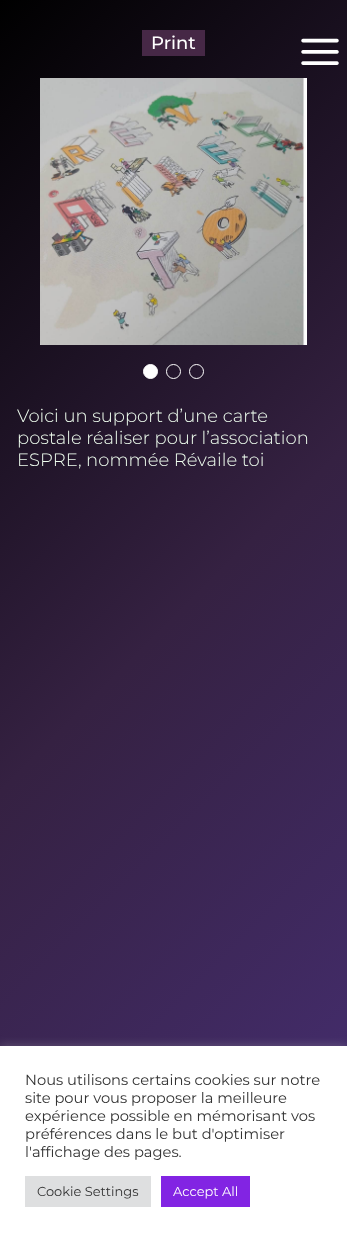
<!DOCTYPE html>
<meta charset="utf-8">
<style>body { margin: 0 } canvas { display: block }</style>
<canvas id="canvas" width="347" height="1237"></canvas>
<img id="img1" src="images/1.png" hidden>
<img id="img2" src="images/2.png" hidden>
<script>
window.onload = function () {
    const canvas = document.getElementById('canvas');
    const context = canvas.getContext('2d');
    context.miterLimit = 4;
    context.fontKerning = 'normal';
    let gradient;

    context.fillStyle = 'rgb(255, 255, 255)';
    context.fillRect(0, 0, 347, 1237);
    gradient = context.createLinearGradient(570, 1015, -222, 223);
    gradient.addColorStop(0, 'rgb(71, 47, 117)');
    gradient.addColorStop(0.5, 'rgb(53, 33, 66)');
    gradient.addColorStop(1, 'rgb(0, 0, 0)');
    context.fillStyle = gradient;
    context.fillRect(0, 0, 347, 1046);
    context.fillStyle = 'rgb(70, 40, 70)';
    context.fillRect(142, 30, 63, 26);
    context.drawImage(document.getElementById('img1'), 40, 78, 267, 267);
    context.fillStyle = 'rgb(255, 255, 255)';
    context.beginPath();
    context.arc(150.5, 371.5, 7, 0, 2 * Math.PI);
    context.fill();
    context.strokeStyle = 'rgb(255, 255, 255)';
    context.stroke();
    context.beginPath();
    context.arc(173.5, 371.5, 7, 0, 2 * Math.PI);
    context.stroke();
    context.beginPath();
    context.arc(196.5, 371.5, 7, 0, 2 * Math.PI);
    context.stroke();
    context.drawImage(document.getElementById('img2'), 301, 38, 38, 27);
    context.fillStyle = 'rgba(172, 171, 171, 0.3)';
    context.filter = 'blur(5px)';
    context.beginPath();
    context.rect(0, 1045, 347, 191);
    context.fill();
    context.filter = 'none';
    context.fillStyle = 'rgb(255, 255, 255)';
    context.fillRect(0, 1046, 347, 191);
    context.fillStyle = 'rgb(222, 223, 224)';
    context.fillRect(25, 1176, 126, 31);
    context.fillStyle = 'rgb(130, 36, 227)';
    context.fillRect(161, 1176, 89, 31);
    context.font = '500 18px Montserrat';
    context.fillStyle = 'rgb(255, 255, 255)';
    context.fillText('Print', 151, 49);
    context.font = '300 18px Montserrat';
    context.fillStyle = 'rgb(240, 255, 240)';
    context.fillText('Voici un support d’une carte', 17, 422);
    context.fillText('postale réaliser pour l’association', 17, 444);
    context.fillText('ESPRE, nommée Révaile toi', 17, 466);
    context.font = '14.7px Montserrat';
    context.fillStyle = 'rgb(51, 51, 51)';
    context.fillText('Nous utilisons certains cookies sur notre', 25, 1085);
    context.fillText('site pour vous proposer la meilleure', 25, 1103);
    context.fillText('expérience possible en mémorisant vos', 25, 1121);
    context.fillText('préférences dans le but d\'optimiser', 25, 1139);
    context.fillText('l\'affichage des pages.', 25, 1157);
    context.font = '13px Montserrat';
    context.fillText('Cookie Settings', 37, 1196);
    context.fillStyle = 'rgb(255, 255, 255)';
    context.fillText('Accept All', 173, 1196);
};
</script>
